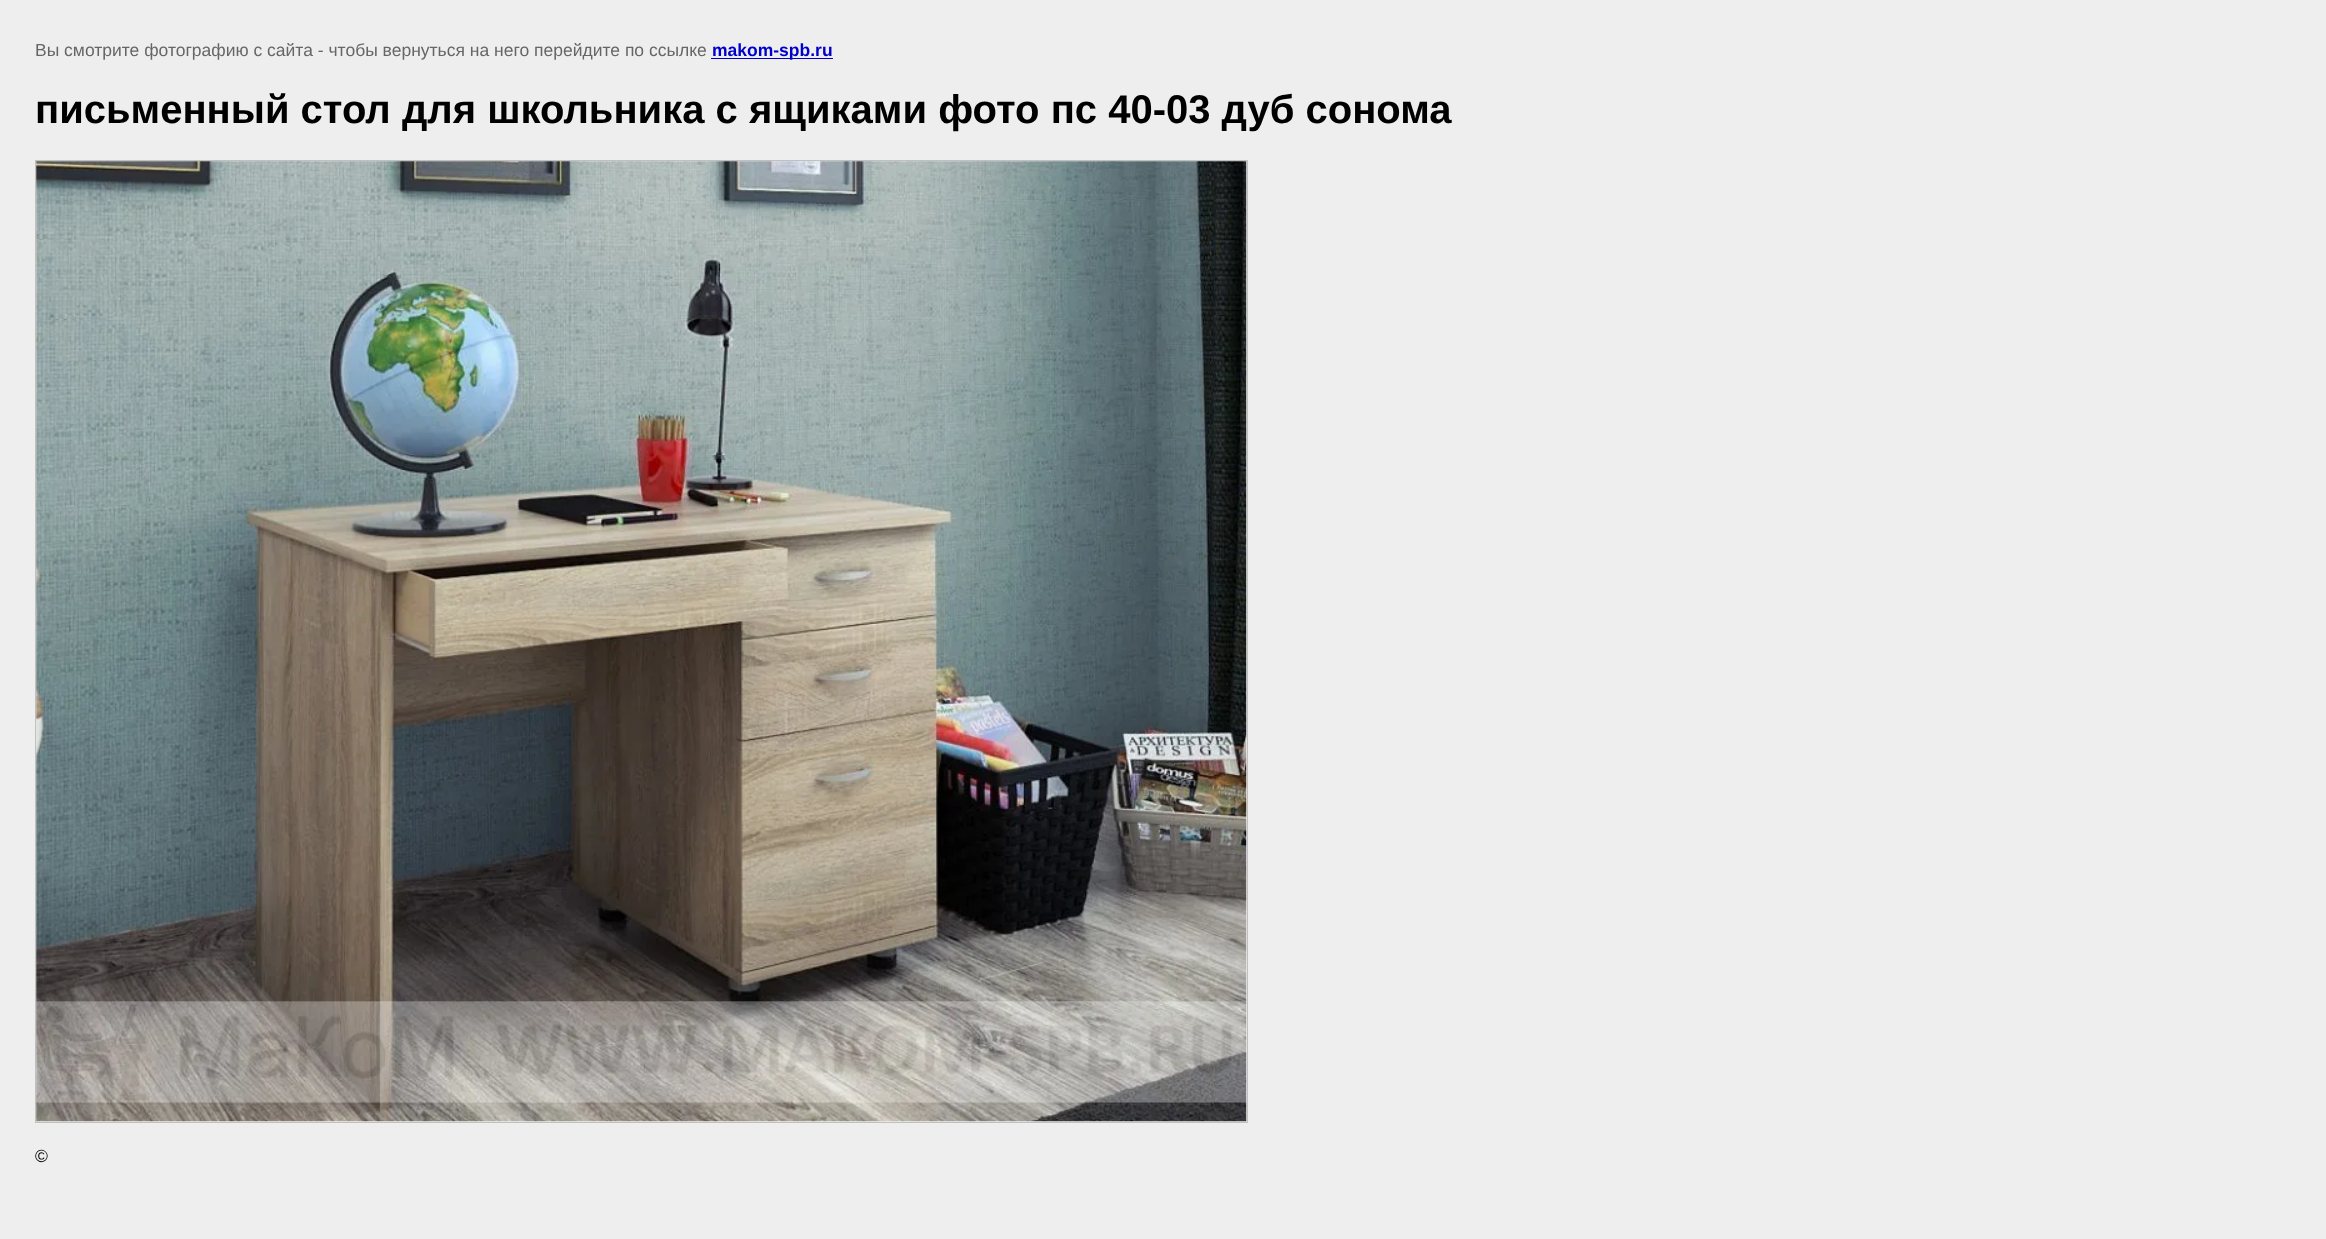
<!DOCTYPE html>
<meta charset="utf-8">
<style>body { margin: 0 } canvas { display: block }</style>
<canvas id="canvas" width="2326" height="1239"></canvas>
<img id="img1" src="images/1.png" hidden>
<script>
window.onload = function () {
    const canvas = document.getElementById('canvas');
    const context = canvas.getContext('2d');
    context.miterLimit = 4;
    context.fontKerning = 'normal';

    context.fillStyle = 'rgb(238, 238, 238)';
    context.fillRect(0, 0, 2326, 1239);
    context.fillStyle = 'rgb(0, 0, 204)';
    context.fillRect(711, 58, 122, 1);
    context.strokeStyle = 'rgb(192, 192, 192)';
    context.strokeRect(35.5, 160.5, 1212, 962);
    context.drawImage(document.getElementById('img1'), 36, 161, 1211, 961);
    context.font = '17.5px Liberation Sans';
    context.fillStyle = 'rgb(102, 102, 102)';
    context.fillText('Вы смотрите фотографию с сайта - чтобы вернуться на него перейдите по ссылке', 35, 56);
    context.font = 'bold 17.5px Liberation Sans';
    context.fillStyle = 'rgb(0, 0, 204)';
    context.fillText('makom-spb.ru', 712, 56);
    context.font = 'bold 40px Liberation Sans';
    context.fillStyle = 'rgb(0, 0, 0)';
    context.fillText('письменный стол для школьника с ящиками фото пс 40-03 дуб сонома', 35, 123);
    context.font = '17.5px Liberation Sans';
    context.fillText('©', 35, 1162);
};
</script>
